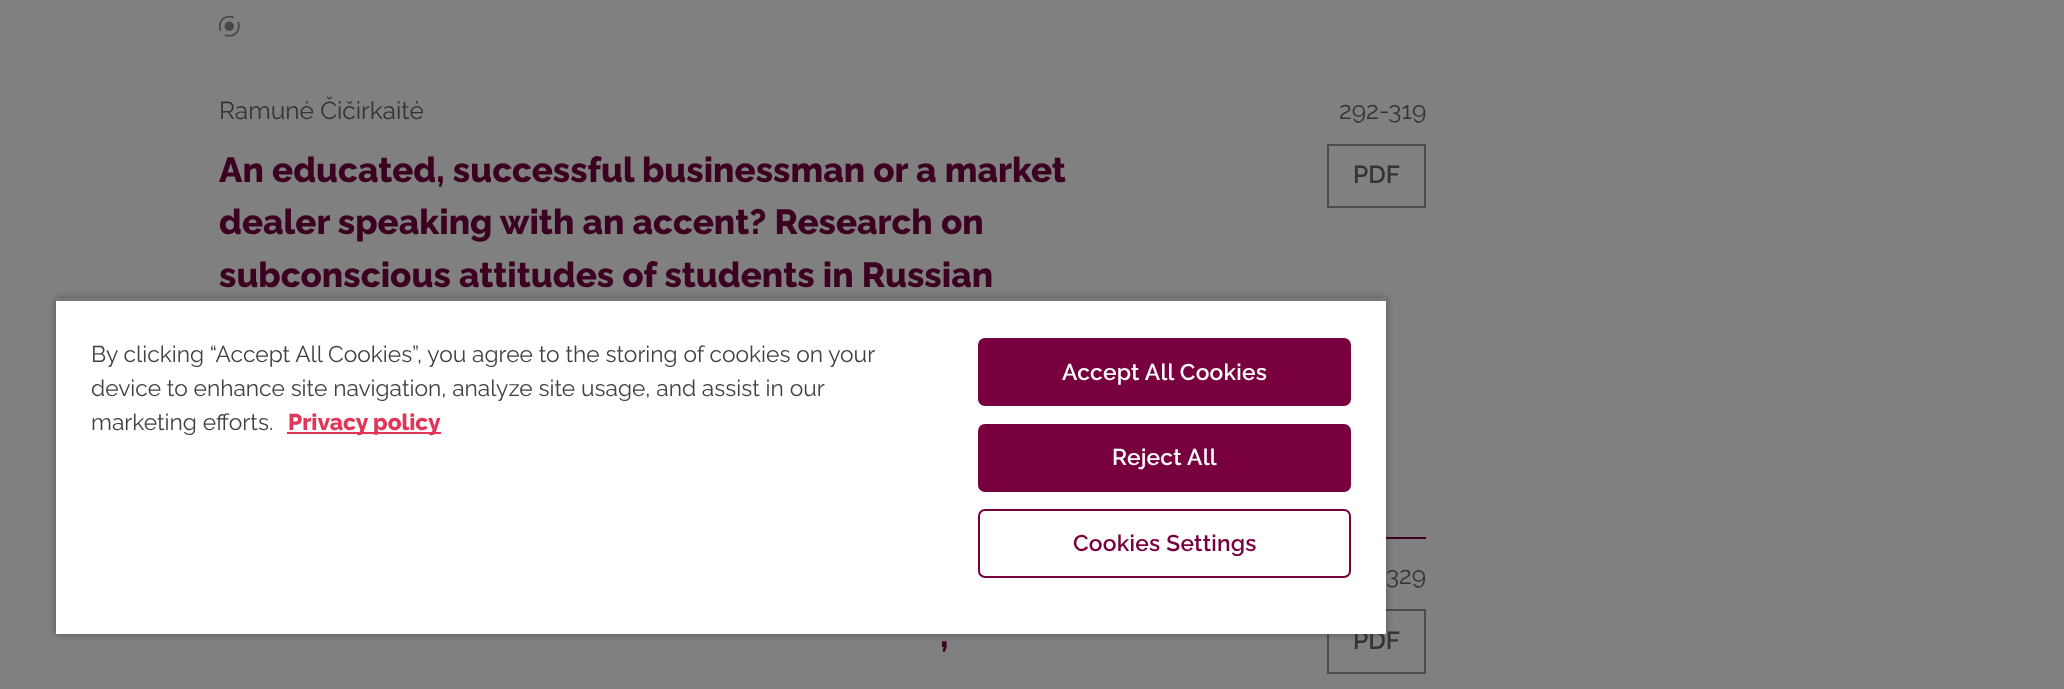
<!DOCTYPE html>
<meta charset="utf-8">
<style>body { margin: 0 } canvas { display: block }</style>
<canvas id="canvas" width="2064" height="689"></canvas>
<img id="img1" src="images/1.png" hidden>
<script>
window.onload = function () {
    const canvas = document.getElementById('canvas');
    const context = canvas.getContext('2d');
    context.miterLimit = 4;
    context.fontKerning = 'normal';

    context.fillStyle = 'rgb(128, 128, 128)';
    context.fillRect(0, 0, 2064, 689);
    context.fillStyle = 'rgb(124, 124, 124)';
    context.fillRect(219, 74, 1207, 2);
    context.drawImage(document.getElementById('img1'), 219, 16, 21, 21);
    context.strokeStyle = 'rgb(77, 77, 77)';
    context.lineWidth = 2;
    context.strokeRect(1328, 145, 97, 62);
    context.fillStyle = 'rgb(60, 0, 32)';
    context.fillRect(1386, 537, 40, 2);
    context.strokeRect(1328, 610, 97, 63);
    context.save();
    context.beginPath();
    context.moveTo(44, 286);
    context.lineTo(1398, 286);
    context.lineTo(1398, 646);
    context.lineTo(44, 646);
    context.closePath();
    context.moveTo(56, 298);
    context.lineTo(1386, 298);
    context.lineTo(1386, 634);
    context.lineTo(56, 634);
    context.closePath();
    context.clip('evenodd');
    context.fillStyle = 'rgba(0, 0, 0, 0.35)';
    context.filter = 'blur(3.5px)';
    context.beginPath();
    context.rect(56, 298, 1330, 336);
    context.fill();
    context.filter = 'none';
    context.restore();
    context.save();
    context.beginPath();
    context.rect(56, 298, 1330, 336);
    context.clip();
    context.fillStyle = 'rgba(0, 0, 0, 0.2)';
    context.filter = 'blur(3.5px)';
    context.beginPath();
    context.rect(56, 301, 1330, 333);
    context.fill();
    context.filter = 'none';
    context.restore();
    context.font = '24.5px Raleway';
    context.fillStyle = 'rgb(51, 51, 51)';
    context.fillText('Ramunė Čičirkaitė', 219, 119);
    context.font = '800 35px Raleway';
    context.fillStyle = 'rgb(60, 0, 32)';
    context.fillText('An educated, successful businessman or a market', 219, 182);
    context.fillText('dealer speaking with an accent? Research on', 219, 234);
    context.fillText('subconscious attitudes of students in Russian', 219, 287);
    context.font = '24.5px Raleway';
    context.fillStyle = 'rgb(51, 51, 51)';
    context.fillText('292-319', 1339, 119);
    context.font = '600 24.5px Raleway';
    context.fillText('PDF', 1353, 183);
    context.font = '800 35px Raleway';
    context.fillStyle = 'rgb(60, 0, 32)';
    context.fillText(',', 940, 647);
    context.font = '24.5px Raleway';
    context.fillStyle = 'rgb(51, 51, 51)';
    context.fillText('329', 1386, 584);
    context.font = '600 24.5px Raleway';
    context.fillText('PDF', 1353, 649);
    context.fillStyle = 'rgb(255, 255, 255)';
    context.fillRect(56, 301, 1330, 333);
    context.font = '22.75px Raleway';
    context.fillStyle = 'rgb(65, 65, 65)';
    context.fillText('By clicking “Accept All Cookies”, you agree to the storing of cookies on your', 91, 362);
    context.fillText('device to enhance site navigation, analyze site usage, and assist in our', 91, 396);
    context.fillText('marketing efforts.', 91, 430);
    context.fillStyle = 'rgb(225, 53, 89)';
    context.fillRect(287, 432, 154, 2);
    context.font = '800 22.75px Raleway';
    context.fillText('Privacy policy', 288, 430);
    context.fillStyle = 'rgb(120, 0, 63)';
    context.beginPath();
    context.roundRect(979, 339, 371, 66, 6);
    context.fill();
    context.strokeStyle = 'rgb(120, 0, 63)';
    context.stroke();
    context.letterSpacing = '0.25px';
    context.font = '600 22.75px Raleway';
    context.fillStyle = 'rgb(255, 255, 255)';
    context.fillText('Accept All Cookies', 1062, 380);
    context.fillStyle = 'rgb(120, 0, 63)';
    context.beginPath();
    context.roundRect(979, 425, 371, 66, 6);
    context.fill();
    context.stroke();
    context.fillStyle = 'rgb(255, 255, 255)';
    context.fillText('Reject All', 1112, 465);
    context.beginPath();
    context.roundRect(979, 510, 371, 67, 6);
    context.stroke();
    context.fillStyle = 'rgb(120, 0, 63)';
    context.fillText('Cookies Settings', 1073, 551);
};
</script>
